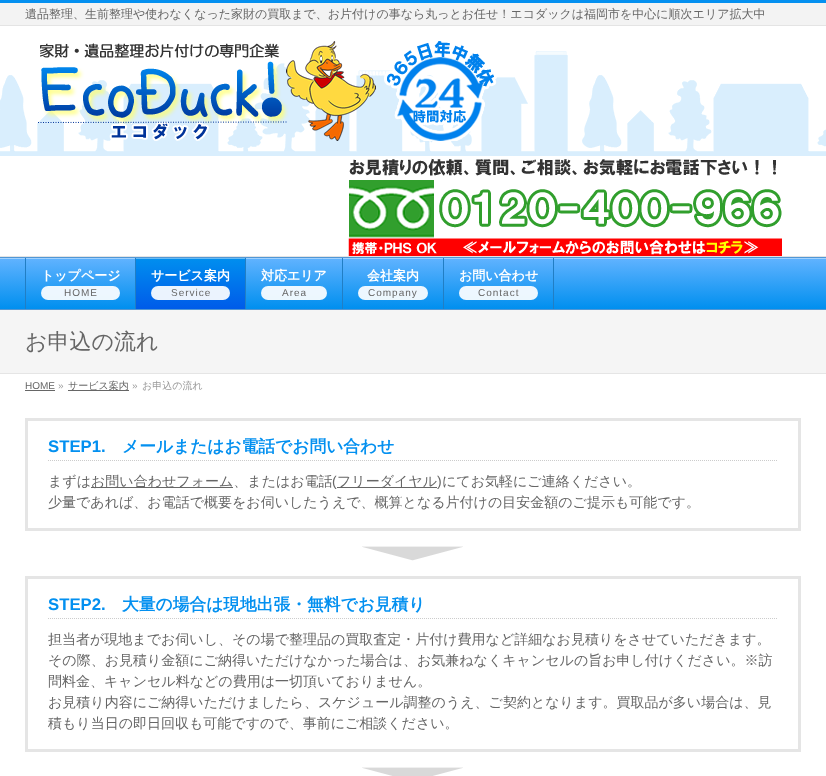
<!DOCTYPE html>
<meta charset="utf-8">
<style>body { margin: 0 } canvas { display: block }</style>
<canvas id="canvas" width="826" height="776"></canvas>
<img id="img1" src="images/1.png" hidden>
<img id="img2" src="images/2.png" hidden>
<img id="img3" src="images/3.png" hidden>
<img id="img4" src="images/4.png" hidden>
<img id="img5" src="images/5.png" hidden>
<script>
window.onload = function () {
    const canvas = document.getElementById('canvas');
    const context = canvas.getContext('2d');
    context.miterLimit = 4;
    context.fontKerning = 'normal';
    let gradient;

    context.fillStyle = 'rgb(255, 255, 255)';
    context.fillRect(0, 0, 826, 776);
    context.fillStyle = 'rgb(243, 243, 243)';
    context.fillRect(0, 3, 826, 22);
    context.fillStyle = 'rgb(4, 144, 240)';
    context.fillRect(0, 0, 826, 3);
    context.drawImage(document.getElementById('img1'), 0, 51, 826, 105);
    context.fillStyle = 'rgb(228, 228, 228)';
    context.fillRect(0, 25, 826, 1);
    context.fillRect(0, 256, 826, 1);
    context.drawImage(document.getElementById('img2'), 38, 41, 459, 100);
    context.drawImage(document.getElementById('img3'), 348, 158, 434, 98);
    gradient = context.createLinearGradient(413, 258, 413, 309);
    gradient.addColorStop(0, 'rgb(97, 179, 255)');
    gradient.addColorStop(1, 'rgb(0, 143, 239)');
    context.fillStyle = gradient;
    context.fillRect(0, 259, 826, 50);
    context.fillStyle = 'rgb(160, 209, 255)';
    context.fillRect(0, 258, 826, 1);
    context.fillStyle = 'rgb(81, 151, 213)';
    context.fillRect(0, 257, 826, 1);
    context.fillRect(0, 309, 826, 1);
    context.fillStyle = 'rgb(33, 126, 196)';
    context.fillRect(25, 258, 1, 51);
    context.fillRect(135, 258, 1, 51);
    context.fillStyle = 'rgba(255, 255, 255, 0.92)';
    context.beginPath();
    context.roundRect(41, 286, 79, 14, 7);
    context.fill();
    gradient = context.createLinearGradient(191, 258, 191, 309);
    gradient.addColorStop(0, 'rgb(0, 143, 239)');
    gradient.addColorStop(1, 'rgb(0, 91, 233)');
    context.fillStyle = gradient;
    context.fillRect(136, 259, 109, 50);
    context.fillStyle = 'rgb(102, 187, 245)';
    context.fillRect(136, 258, 109, 1);
    context.fillStyle = 'rgb(33, 126, 196)';
    context.fillRect(245, 258, 1, 51);
    context.fillStyle = 'rgba(255, 255, 255, 0.92)';
    context.beginPath();
    context.roundRect(151, 286, 79, 14, 7);
    context.fill();
    context.fillStyle = 'rgb(33, 126, 196)';
    context.fillRect(342, 258, 1, 51);
    context.fillStyle = 'rgba(255, 255, 255, 0.92)';
    context.beginPath();
    context.roundRect(261, 286, 66, 14, 7);
    context.fill();
    context.fillStyle = 'rgb(33, 126, 196)';
    context.fillRect(443, 258, 1, 51);
    context.fillStyle = 'rgba(255, 255, 255, 0.92)';
    context.beginPath();
    context.roundRect(358, 286, 70, 14, 7);
    context.fill();
    context.fillStyle = 'rgb(33, 126, 196)';
    context.fillRect(553, 258, 1, 51);
    context.fillStyle = 'rgba(255, 255, 255, 0.92)';
    context.beginPath();
    context.roundRect(459, 286, 79, 14, 7);
    context.fill();
    context.fillStyle = 'rgb(245, 245, 245)';
    context.fillRect(0, 310, 826, 63);
    context.fillStyle = 'rgb(229, 229, 229)';
    context.fillRect(0, 373, 826, 1);
    context.fillStyle = 'rgb(102, 102, 102)';
    context.fillRect(25, 390, 30, 1);
    context.fillRect(68, 390, 61, 1);
    context.drawImage(document.getElementById('img4'), 362, 546, 101, 15);
    context.strokeStyle = 'rgb(229, 229, 229)';
    context.lineWidth = 3;
    context.strokeRect(26.5, 419.5, 773, 110);
    context.beginPath();
    context.moveTo(48, 460.5);
    context.lineTo(778, 460.5);
    context.strokeStyle = 'rgb(204, 204, 204)';
    context.lineWidth = 1;
    context.setLineDash([1, 1]);
    context.stroke();
    context.fillRect(91, 487, 142, 1);
    context.fillRect(337, 487, 100, 1);
    context.drawImage(document.getElementById('img5'), 362, 767, 101, 9);
    context.strokeStyle = 'rgb(229, 229, 229)';
    context.lineWidth = 3;
    context.setLineDash([]);
    context.strokeRect(26.5, 577.5, 773, 173);
    context.beginPath();
    context.moveTo(48, 618.5);
    context.lineTo(778, 618.5);
    context.strokeStyle = 'rgb(204, 204, 204)';
    context.lineWidth = 1;
    context.setLineDash([1, 1]);
    context.stroke();
    context.font = '500 12px WenQuanYi Zen Hei';
    context.fillText('遺品整理、生前整理や使わなくなった家財の買取まで、お片付けの事なら丸っとお任せ！エコダックは福岡市を中心に順次エリア拡大中', 25, 18);
    context.font = 'bold 13px WenQuanYi Zen Hei';
    context.fillStyle = 'rgb(255, 255, 255)';
    context.fillText('トップページ', 41, 280);
    context.letterSpacing = '1px';
    context.font = '10px Liberation Sans';
    context.fillStyle = 'rgb(102, 102, 102)';
    context.fillText('HOME', 64, 296);
    context.letterSpacing = '0px';
    context.font = 'bold 13px WenQuanYi Zen Hei';
    context.fillStyle = 'rgb(255, 255, 255)';
    context.fillText('サービス案内', 151, 280);
    context.letterSpacing = '1px';
    context.font = '10px Liberation Sans';
    context.fillStyle = 'rgb(102, 102, 102)';
    context.fillText('Service', 171, 296);
    context.letterSpacing = '0px';
    context.font = 'bold 13px WenQuanYi Zen Hei';
    context.fillStyle = 'rgb(255, 255, 255)';
    context.fillText('対応エリア', 261, 280);
    context.letterSpacing = '1px';
    context.font = '10px Liberation Sans';
    context.fillStyle = 'rgb(102, 102, 102)';
    context.fillText('Area', 282, 296);
    context.letterSpacing = '0px';
    context.font = 'bold 13px WenQuanYi Zen Hei';
    context.fillStyle = 'rgb(255, 255, 255)';
    context.fillText('会社案内', 367, 280);
    context.letterSpacing = '1px';
    context.font = '10px Liberation Sans';
    context.fillStyle = 'rgb(102, 102, 102)';
    context.fillText('Company', 368, 296);
    context.letterSpacing = '0px';
    context.font = 'bold 13px WenQuanYi Zen Hei';
    context.fillStyle = 'rgb(255, 255, 255)';
    context.fillText('お問い合わせ', 459, 280);
    context.letterSpacing = '1px';
    context.font = '10px Liberation Sans';
    context.fillStyle = 'rgb(102, 102, 102)';
    context.fillText('Contact', 478, 296);
    context.letterSpacing = '0px';
    context.font = '500 22px WenQuanYi Zen Hei';
    context.fillText('お申込の流れ', 25, 349);
    context.font = '10px Liberation Sans';
    context.fillText('HOME', 25, 389);
    context.fillStyle = 'rgb(153, 153, 153)';
    context.fillText('»', 58, 389);
    context.font = '500 10px WenQuanYi Zen Hei';
    context.fillStyle = 'rgb(102, 102, 102)';
    context.fillText('サービス案内', 68, 389);
    context.font = '10px Liberation Sans';
    context.fillStyle = 'rgb(153, 153, 153)';
    context.fillText('»', 132, 389);
    context.font = '500 10px WenQuanYi Zen Hei';
    context.fillText('お申込の流れ', 142, 389);
    context.font = 'bold 16.75px Liberation Sans';
    context.fillStyle = 'rgb(3, 144, 240)';
    context.fillText('STEP1.', 48, 452);
    context.font = 'bold 16.75px WenQuanYi Zen Hei';
    context.fillText('メールまたはお電話でお問い合わせ', 122, 452);
    context.font = '500 14px WenQuanYi Zen Hei';
    context.fillStyle = 'rgb(102, 102, 102)';
    context.fillText('まずは', 48, 486);
    context.fillText('お問い合わせフォーム、またはお電話', 91, 486);
    context.font = '14px Liberation Sans';
    context.fillText('(', 332, 486);
    context.font = '500 14px WenQuanYi Zen Hei';
    context.fillText('フリーダイヤル', 337, 486);
    context.font = '14px Liberation Sans';
    context.fillText(')', 437, 486);
    context.font = '500 14px WenQuanYi Zen Hei';
    context.fillText('にてお気軽にご連絡ください。', 442, 486);
    context.fillText('少量であれば、お電話で概要をお伺いしたうえで、概算となる片付けの目安金額のご提示も可能です。', 48, 507);
    context.font = 'bold 16.75px Liberation Sans';
    context.fillStyle = 'rgb(3, 144, 240)';
    context.fillText('STEP2.', 48, 610);
    context.font = 'bold 16.75px WenQuanYi Zen Hei';
    context.fillText('大量の場合は現地出張・無料でお見積り', 122, 610);
    context.font = '500 14px WenQuanYi Zen Hei';
    context.fillStyle = 'rgb(102, 102, 102)';
    context.fillText('担当者が現地までお伺いし、その場で整理品の買取査定・片付け費用など詳細なお見積りをさせていただきます。', 48, 644);
    context.fillText('その際、お見積り金額にご納得いただけなかった場合は、お気兼ねなくキャンセルの旨お申し付けください。※訪', 48, 665);
    context.fillText('問料金、キャンセル料などの費用は一切頂いておりません。', 48, 686);
    context.fillText('お見積り内容にご納得いただけましたら、スケジュール調整のうえ、ご契約となります。買取品が多い場合は、見', 48, 707);
    context.fillText('積もり当日の即日回収も可能ですので、事前にご相談ください。', 48, 728);
};
</script>
